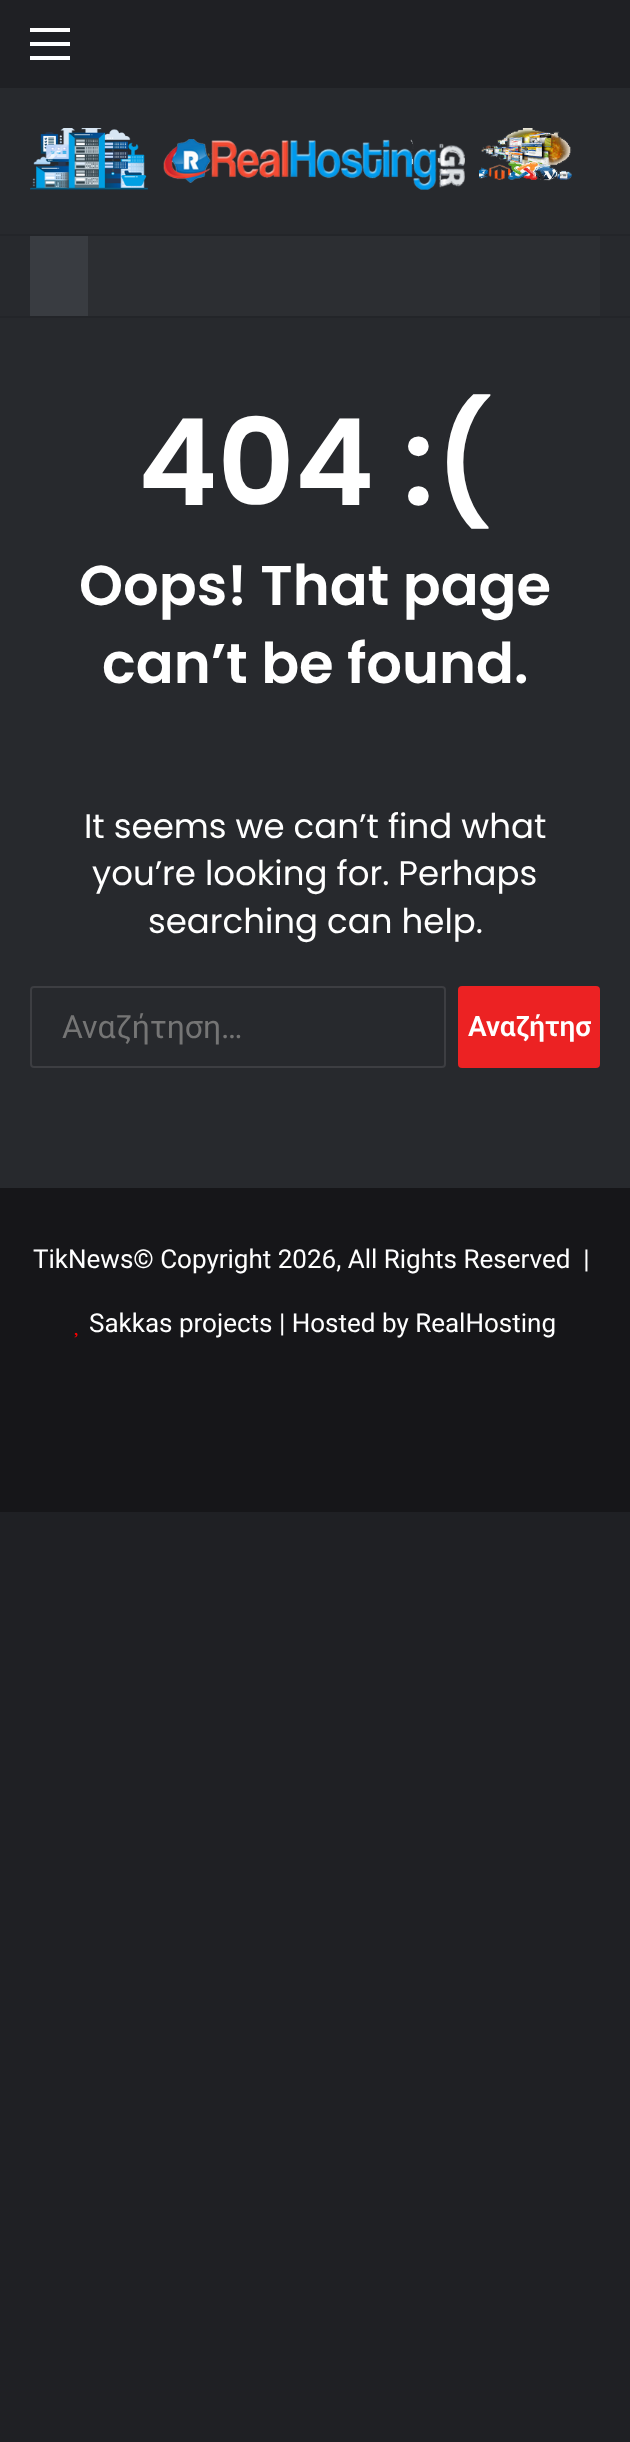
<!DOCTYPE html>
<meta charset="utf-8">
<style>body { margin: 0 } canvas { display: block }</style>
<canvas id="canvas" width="630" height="2442"></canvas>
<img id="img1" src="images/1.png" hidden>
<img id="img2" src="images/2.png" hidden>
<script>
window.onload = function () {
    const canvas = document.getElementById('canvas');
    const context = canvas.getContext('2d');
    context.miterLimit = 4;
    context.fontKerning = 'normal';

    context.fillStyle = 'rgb(31, 32, 36)';
    context.fillRect(0, 0, 630, 2442);
    context.fillStyle = 'rgb(39, 41, 45)';
    context.fillRect(0, 88, 630, 1100);
    context.fillStyle = 'rgb(255, 255, 255)';
    context.fillRect(30, 42, 40, 4);
    context.fillRect(30, 28, 40, 4);
    context.fillRect(30, 56, 40, 4);
    context.drawImage(document.getElementById('img1'), 30, 128, 542, 62);
    context.fillStyle = 'rgb(35, 37, 41)';
    context.fillRect(0, 234, 630, 2);
    context.fillRect(0, 316, 630, 2);
    context.fillStyle = 'rgb(44, 46, 50)';
    context.fillRect(88, 236, 512, 80);
    context.fillStyle = 'rgb(57, 60, 65)';
    context.fillRect(30, 236, 58, 80);
    context.beginPath();
    context.roundRect(31, 987, 414, 80, 3);
    context.strokeStyle = 'rgb(61, 62, 66)';
    context.lineWidth = 2;
    context.stroke();
    context.fillStyle = 'rgb(236, 34, 35)';
    context.beginPath();
    context.roundRect(458, 986, 142, 82, 4);
    context.fill();
    context.fillStyle = 'rgb(22, 22, 25)';
    context.fillRect(0, 1188, 630, 324);
    context.drawImage(document.getElementById('img2'), 74, 1332, 4, 6);
    context.font = '600 120px Poppins';
    context.fillStyle = 'rgb(255, 255, 255)';
    context.fillText('404 :(', 138, 505);
    context.font = '600 56px Poppins';
    context.fillText('Oops! That page', 79, 605);
    context.fillText('can’t be found.', 102, 683);
    context.font = '34px Poppins';
    context.fillText('It seems we can’t find what', 84, 838);
    context.fillText('you’re looking for. Perhaps', 92, 885);
    context.fillText('searching can help.', 148, 933);
    context.font = '32px Roboto';
    context.fillStyle = 'rgb(117, 117, 117)';
    context.fillText('Αναζήτηση…', 62, 1038);
    context.font = '600 28px Roboto';
    context.fillStyle = 'rgb(255, 255, 255)';
    context.fillText('Αναζήτησ', 468, 1036);
    context.font = '26px Roboto';
    context.fillText('TikNews© Copyright 2026, All Rights Reserved  |', 33, 1268);
    context.fillText('Sakkas projects | Hosted by RealHosting', 89, 1332);
};
</script>
